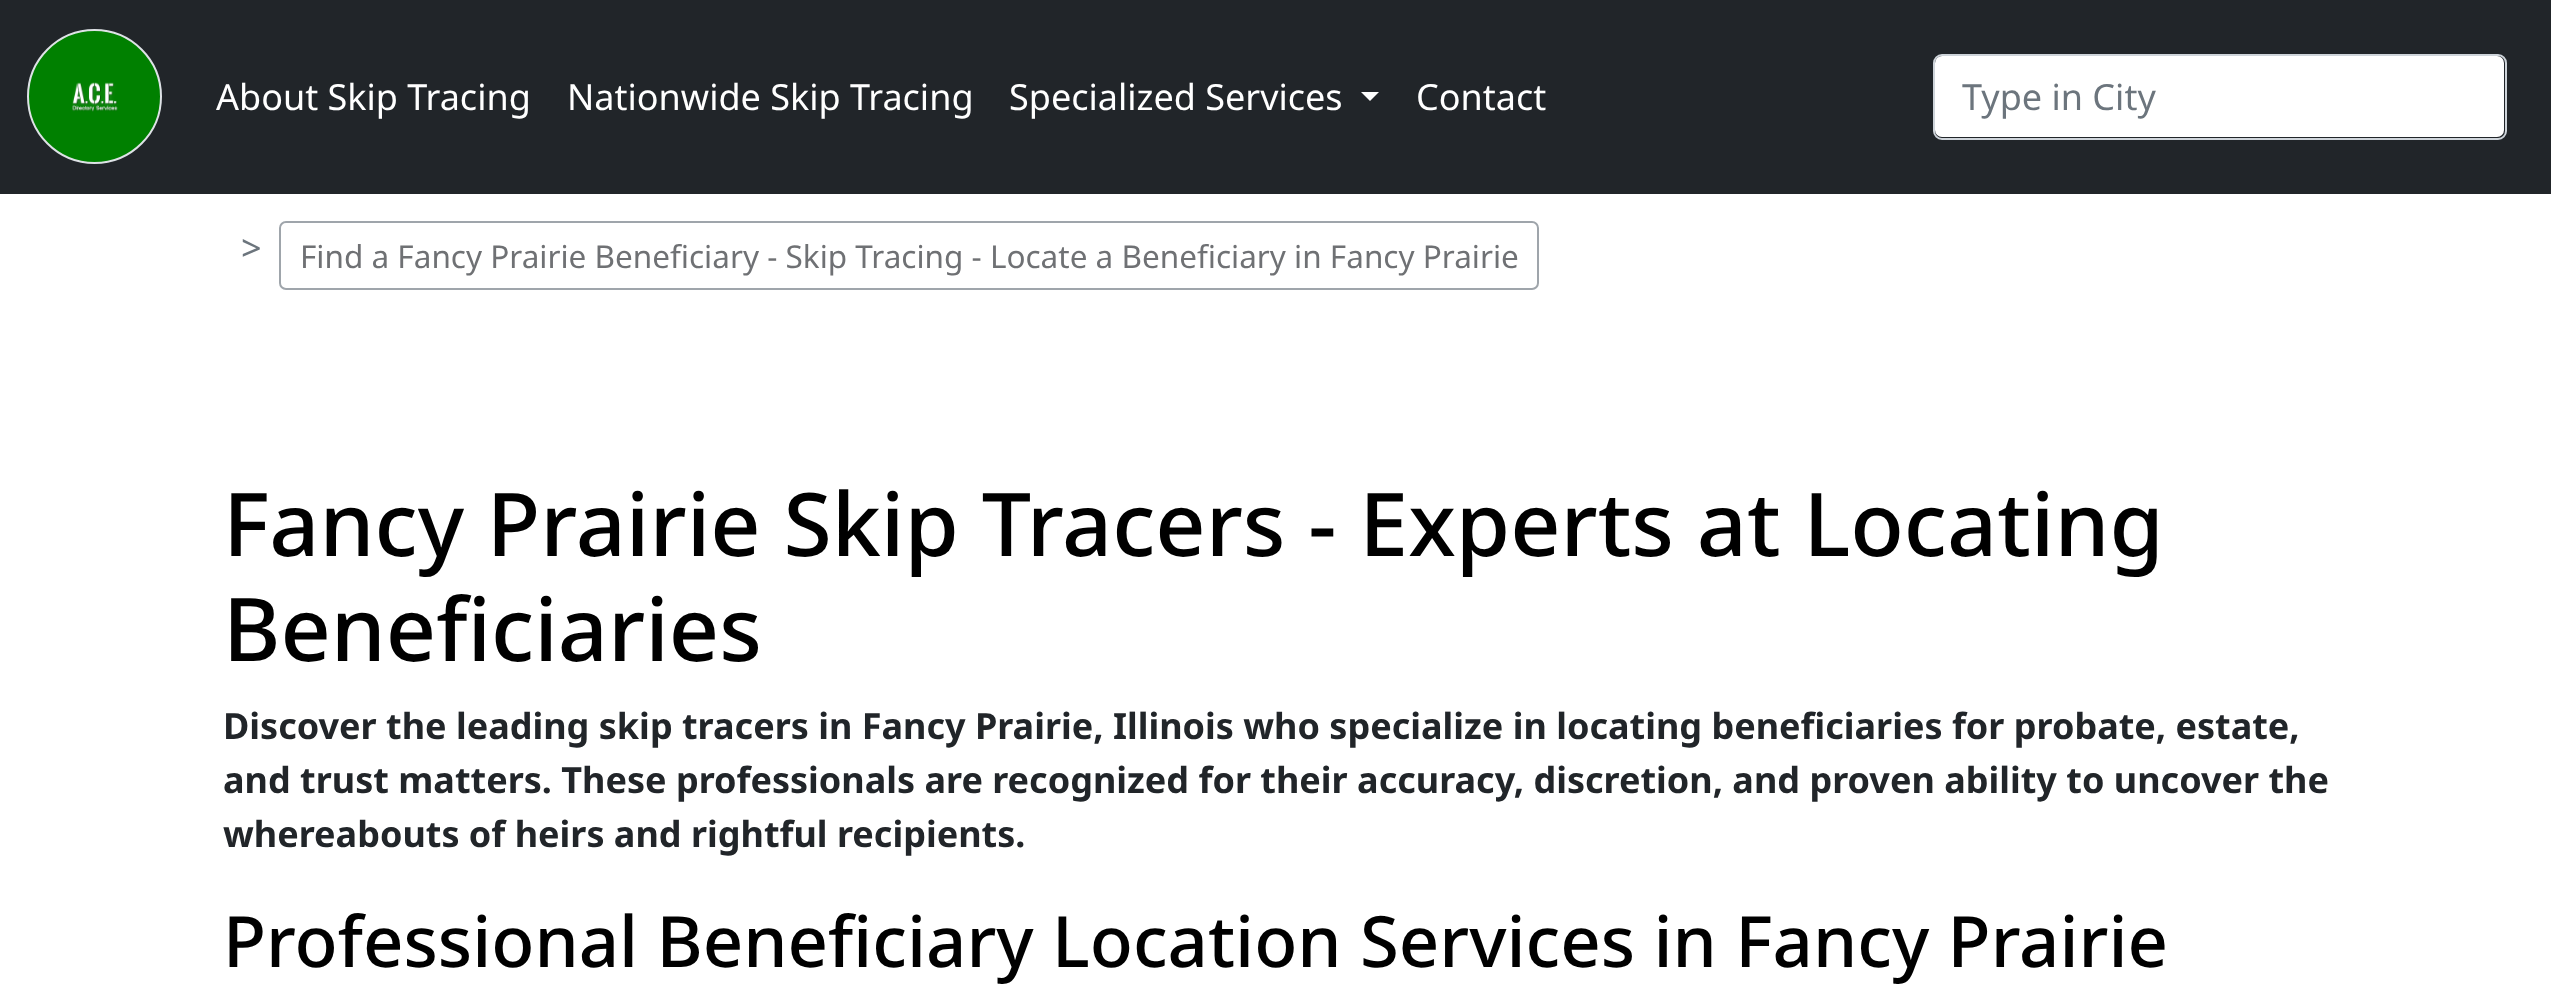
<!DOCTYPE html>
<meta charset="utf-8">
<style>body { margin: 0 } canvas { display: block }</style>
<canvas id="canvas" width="2551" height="989"></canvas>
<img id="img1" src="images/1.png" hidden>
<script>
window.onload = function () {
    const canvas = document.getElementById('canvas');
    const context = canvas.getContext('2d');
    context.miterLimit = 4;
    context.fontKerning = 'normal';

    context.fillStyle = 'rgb(255, 255, 255)';
    context.fillRect(0, 0, 2551, 989);
    context.fillStyle = 'rgb(33, 37, 41)';
    context.fillRect(0, 0, 2551, 194);
    context.fillStyle = 'rgb(0, 128, 0)';
    context.beginPath();
    context.arc(94.5, 96.5, 66.5, 0, 2 * Math.PI);
    context.fill();
    context.strokeStyle = 'rgb(222, 226, 230)';
    context.lineWidth = 2;
    context.stroke();
    context.drawImage(document.getElementById('img1'), 72, 82, 46, 30);
    context.fillStyle = 'rgb(255, 255, 255)';
    context.beginPath();
    context.moveTo(1361, 92);
    context.lineTo(1379, 92);
    context.lineTo(1370, 101);
    context.closePath();
    context.fill();
    context.beginPath();
    context.roundRect(1935, 56, 569, 81, 7);
    context.fill();
    context.beginPath();
    context.roundRect(1934, 55, 572, 84, 8);
    context.strokeStyle = 'rgb(206, 212, 218)';
    context.stroke();
    context.beginPath();
    context.roundRect(280, 222, 1258, 67, 6);
    context.strokeStyle = 'rgb(159, 165, 171)';
    context.stroke();
    context.font = '36px Noto Sans';
    context.fillText('About Skip Tracing', 216, 110);
    context.fillText('Nationwide Skip Tracing', 567, 110);
    context.fillText('Specialized Services', 1009, 110);
    context.fillText('Contact', 1416, 110);
    context.fillStyle = 'rgb(108, 117, 125)';
    context.fillText('Type in City', 1962, 110);
    context.fillText('>', 241, 261);
    context.font = '31.5px Noto Sans';
    context.fillStyle = 'rgb(111, 113, 116)';
    context.fillText('Find a Fancy Prairie Beneficiary - Skip Tracing - Locate a Beneficiary in Fancy Prairie', 300, 268);
    context.font = '500 87.75px Noto Sans';
    context.fillStyle = 'rgb(0, 0, 0)';
    context.fillText('Fancy Prairie Skip Tracers - Experts at Locating', 223, 556);
    context.fillText('Beneficiaries', 223, 661);
    context.font = 'bold 36px Noto Sans';
    context.fillStyle = 'rgb(33, 37, 41)';
    context.fillText('Discover the leading skip tracers in Fancy Prairie, Illinois who specialize in locating beneficiaries for probate, estate,', 223, 739);
    context.fillText('and trust matters. These professionals are recognized for their accuracy, discretion, and proven ability to uncover the', 223, 793);
    context.fillText('whereabouts of heirs and rightful recipients.', 223, 847);
    context.font = '500 70.65px Noto Sans';
    context.fillStyle = 'rgb(0, 0, 0)';
    context.fillText('Professional Beneficiary Location Services in Fancy Prairie', 223, 967);
};
</script>
